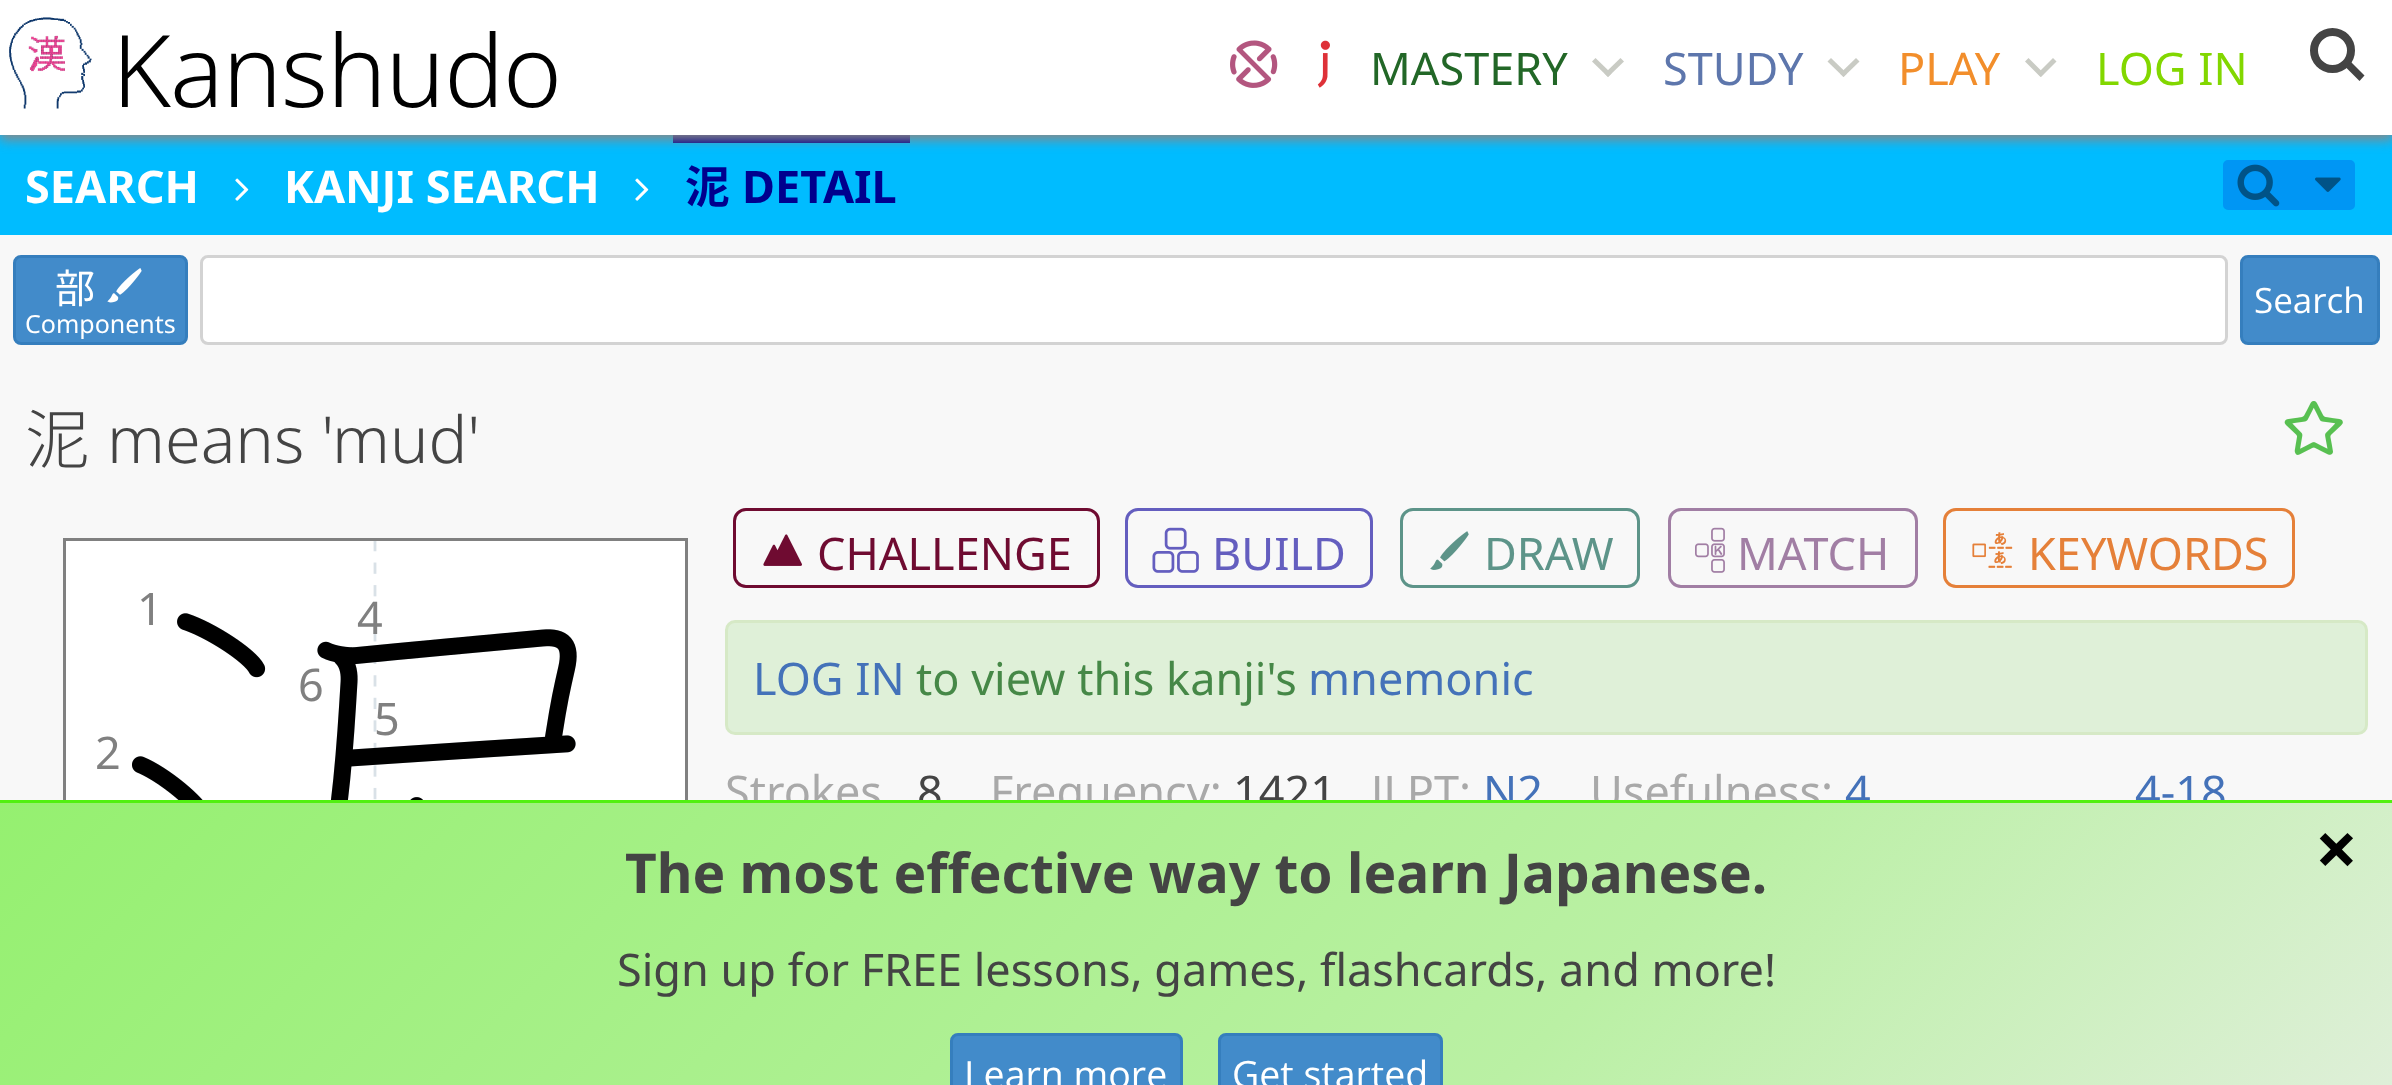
<!DOCTYPE html>
<meta charset="utf-8">
<style>body { margin: 0 } canvas { display: block }</style>
<canvas id="canvas" width="2392" height="1085"></canvas>
<img id="img1" src="images/1.png" hidden>
<img id="img2" src="images/2.png" hidden>
<img id="img3" src="images/3.png" hidden>
<img id="img4" src="images/4.png" hidden>
<img id="img5" src="images/5.png" hidden>
<img id="img6" src="images/6.png" hidden>
<img id="img7" src="images/7.png" hidden>
<img id="img8" src="images/8.png" hidden>
<img id="img9" src="images/9.png" hidden>
<img id="img10" src="images/10.png" hidden>
<img id="img11" src="images/11.png" hidden>
<img id="img12" src="images/12.png" hidden>
<img id="img13" src="images/13.png" hidden>
<img id="img14" src="images/15.png" hidden>
<img id="img15" src="images/14.png" hidden>
<script>
window.onload = function () {
    const canvas = document.getElementById('canvas');
    const context = canvas.getContext('2d');
    context.miterLimit = 4;
    context.fontKerning = 'normal';
    let gradient;

    context.fillStyle = 'rgb(248, 248, 248)';
    context.fillRect(0, 0, 2392, 1085);
    context.fillStyle = 'rgb(0, 188, 255)';
    context.fillRect(0, 135, 2392, 100);
    context.fillStyle = 'rgb(0, 0, 142)';
    context.fillRect(673, 135, 237, 8);
    context.fillStyle = 'rgb(136, 136, 136)';
    context.filter = 'blur(6px)';
    context.beginPath();
    context.rect(0, 5, 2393, 135);
    context.fill();
    context.filter = 'none';
    context.fillStyle = 'rgb(255, 255, 255)';
    context.fillRect(0, 0, 2392, 135);
    context.drawImage(document.getElementById('img1'), 9, 17, 83, 92);
    context.drawImage(document.getElementById('img2'), 1230, 40, 48, 48);
    context.drawImage(document.getElementById('img3'), 1317, 40, 13, 48);
    context.fillStyle = 'rgb(201, 203, 196)';
    context.beginPath();
    context.moveTo(1595.5, 58);
    context.lineTo(1611.5, 73.5);
    context.lineTo(1608, 77);
    context.lineTo(1592, 61.5);
    context.closePath();
    context.fill();
    context.beginPath();
    context.moveTo(1604.5, 73.5);
    context.lineTo(1620.5, 58);
    context.lineTo(1624, 61.5);
    context.lineTo(1608, 77);
    context.closePath();
    context.fill();
    context.beginPath();
    context.moveTo(1831, 58);
    context.lineTo(1847, 73.5);
    context.lineTo(1843.5, 77);
    context.lineTo(1827.5, 61.5);
    context.closePath();
    context.fill();
    context.beginPath();
    context.moveTo(1840, 73.5);
    context.lineTo(1856, 58);
    context.lineTo(1859.5, 61.5);
    context.lineTo(1843.5, 77);
    context.closePath();
    context.fill();
    context.beginPath();
    context.moveTo(2028.5, 58);
    context.lineTo(2044, 73.5);
    context.lineTo(2040.5, 77);
    context.lineTo(2025, 61.5);
    context.closePath();
    context.fill();
    context.beginPath();
    context.moveTo(2037.5, 73.5);
    context.lineTo(2053, 58);
    context.lineTo(2056.5, 61.5);
    context.lineTo(2041, 77);
    context.closePath();
    context.fill();
    context.beginPath();
    context.arc(2332.5, 50.5, 18.5, 0, 2 * Math.PI);
    context.strokeStyle = 'rgb(68, 68, 68)';
    context.lineWidth = 8;
    context.stroke();
    context.fillStyle = 'rgb(68, 68, 68)';
    context.beginPath();
    context.moveTo(2350.5, 61.5);
    context.lineTo(2364.5, 75.5);
    context.lineTo(2359.5, 81);
    context.lineTo(2345.5, 67);
    context.closePath();
    context.fill();
    context.drawImage(document.getElementById('img4'), 235, 178, 14, 23);
    context.drawImage(document.getElementById('img4'), 635, 178, 14, 23);
    context.fillStyle = 'rgb(0, 150, 244)';
    context.beginPath();
    context.roundRect(2224.5, 161.5, 129, 47, 3.5);
    context.fill();
    context.strokeStyle = 'rgb(0, 150, 244)';
    context.lineWidth = 3;
    context.stroke();
    context.drawImage(document.getElementById('img5'), 2237, 164, 43, 43);
    context.drawImage(document.getElementById('img6'), 2315, 177, 26, 15);
    context.fillStyle = 'rgb(66, 139, 202)';
    context.beginPath();
    context.roundRect(14.5, 256.5, 172, 87, 6.5);
    context.fill();
    context.strokeStyle = 'rgb(53, 126, 189)';
    context.stroke();
    context.drawImage(document.getElementById('img7'), 107, 268, 35, 35);
    context.fillStyle = 'rgb(255, 255, 255)';
    context.beginPath();
    context.roundRect(201.5, 256.5, 2025, 87, 6.5);
    context.fill();
    context.strokeStyle = 'rgb(211, 211, 211)';
    context.stroke();
    context.fillStyle = 'rgb(66, 139, 202)';
    context.beginPath();
    context.roundRect(2241.5, 256.5, 137, 87, 6.5);
    context.fill();
    context.strokeStyle = 'rgb(53, 126, 189)';
    context.stroke();
    context.drawImage(document.getElementById('img8'), 2284, 401, 59, 54);
    context.beginPath();
    context.roundRect(734.5, 509.5, 364, 77, 11.5);
    context.strokeStyle = 'rgb(111, 11, 49)';
    context.stroke();
    context.drawImage(document.getElementById('img9'), 763, 534, 39, 32);
    context.beginPath();
    context.roundRect(1126.5, 509.5, 245, 77, 11.5);
    context.strokeStyle = 'rgb(100, 94, 191)';
    context.stroke();
    context.drawImage(document.getElementById('img10'), 1152, 527, 47, 46);
    context.beginPath();
    context.roundRect(1401.5, 509.5, 237, 77, 11.5);
    context.strokeStyle = 'rgb(93, 148, 137)';
    context.stroke();
    context.drawImage(document.getElementById('img11'), 1430, 531, 39, 39);
    context.beginPath();
    context.roundRect(1669.5, 509.5, 247, 77, 11.5);
    context.strokeStyle = 'rgb(161, 126, 164)';
    context.stroke();
    context.drawImage(document.getElementById('img12'), 1695, 527, 30, 46);
    context.beginPath();
    context.roundRect(1944.5, 509.5, 349, 77, 11.5);
    context.strokeStyle = 'rgb(229, 128, 57)';
    context.stroke();
    context.drawImage(document.getElementById('img13'), 1972, 532, 41, 36);
    context.fillStyle = 'rgb(255, 255, 255)';
    context.fillRect(66, 541, 619, 259);
    context.drawImage(document.getElementById('img14'), 132, 541, 445, 259);
    context.strokeStyle = 'rgb(128, 128, 128)';
    context.strokeRect(64.5, 539.5, 622, 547);
    context.fillStyle = 'rgb(223, 240, 216)';
    context.beginPath();
    context.roundRect(726.5, 621.5, 1640, 112, 8.5);
    context.fill();
    context.strokeStyle = 'rgb(214, 233, 198)';
    context.stroke();
    context.letterSpacing = '-1px';
    context.font = '300 100px Noto Sans';
    context.fillStyle = 'rgb(0, 0, 0)';
    context.fillText('Kanshudo', 112, 107);
    context.letterSpacing = '0px';
    context.font = '45px Noto Sans';
    context.fillStyle = 'rgb(34, 103, 39)';
    context.fillText('MASTERY', 1370, 85);
    context.fillStyle = 'rgb(93, 118, 172)';
    context.fillText('STUDY', 1663, 85);
    context.fillStyle = 'rgb(242, 142, 43)';
    context.fillText('PLAY', 1898, 85);
    context.fillStyle = 'rgb(130, 215, 0)';
    context.fillText('LOG IN', 2096, 85);
    context.font = 'bold 45px Noto Sans';
    context.fillStyle = 'rgb(255, 255, 255)';
    context.fillText('SEARCH', 25, 203);
    context.fillText('KANJI SEARCH', 284, 203);
    context.font = 'bold 45px Noto Sans CJK JP';
    context.fillStyle = 'rgb(0, 0, 142)';
    context.fillText('泥', 685, 203);
    context.font = 'bold 45px Noto Sans';
    context.fillText('DETAIL', 742, 203);
    context.font = '40px Noto Sans CJK JP';
    context.fillStyle = 'rgb(255, 255, 255)';
    context.fillText('部', 55, 303);
    context.font = '25px Noto Sans';
    context.fillText('Components', 25, 333);
    context.font = '35px Open Sans';
    context.fillText('Search', 2254, 313);
    context.font = '300 64.75px Noto Sans CJK JP';
    context.fillStyle = 'rgb(68, 68, 68)';
    context.fillText('泥', 25, 463);
    context.font = '300 64.75px Noto Sans';
    context.fillText('means \'mud\'', 107, 463);
    context.font = '45px Noto Sans';
    context.fillStyle = 'rgb(111, 11, 49)';
    context.fillText('CHALLENGE', 817, 570);
    context.fillStyle = 'rgb(100, 94, 191)';
    context.fillText('BUILD', 1212, 570);
    context.fillStyle = 'rgb(93, 148, 137)';
    context.fillText('DRAW', 1484, 570);
    context.fillStyle = 'rgb(161, 126, 164)';
    context.fillText('MATCH', 1737, 570);
    context.fillStyle = 'rgb(229, 128, 57)';
    context.fillText('KEYWORDS', 2028, 570);
    context.fillStyle = 'rgb(128, 128, 128)';
    context.fillText('1', 137, 625);
    context.fillText('4', 357, 634);
    context.fillText('6', 298, 701);
    context.fillText('5', 374, 735);
    context.drawImage(document.getElementById('img15'), 132, 613, 445, 187);
    context.fillText('2', 95, 769);
    context.fillStyle = 'rgb(68, 114, 185)';
    context.fillText('LOG IN', 753, 695);
    context.fillStyle = 'rgb(70, 136, 71)';
    context.fillText('to view this kanji\'s', 916, 695);
    context.fillStyle = 'rgb(68, 114, 185)';
    context.fillText('mnemonic', 1308, 695);
    context.fillStyle = 'rgb(169, 169, 169)';
    context.fillText('Strokes', 725, 808);
    context.fillStyle = 'rgb(68, 68, 68)';
    context.fillText('8', 917, 808);
    context.fillStyle = 'rgb(169, 169, 169)';
    context.fillText('Frequency:', 990, 808);
    context.fillStyle = 'rgb(68, 68, 68)';
    context.fillText('1421', 1233, 808);
    context.fillStyle = 'rgb(169, 169, 169)';
    context.fillText('JLPT:', 1371, 808);
    context.fillStyle = 'rgb(68, 114, 185)';
    context.fillText('N2', 1483, 808);
    context.fillStyle = 'rgb(169, 169, 169)';
    context.fillText('Usefulness:', 1590, 808);
    context.fillStyle = 'rgb(68, 114, 185)';
    context.fillText('4', 1845, 808);
    context.fillText('4-18', 2135, 808);
    gradient = context.createLinearGradient(512, 291, 1881, 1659);
    gradient.addColorStop(0, 'rgb(149, 240, 112)');
    gradient.addColorStop(0.65, 'rgb(186, 240, 164)');
    gradient.addColorStop(1, 'rgb(225, 239, 220)');
    context.fillStyle = gradient;
    context.fillRect(0, 803, 2392, 282);
    context.fillStyle = 'rgb(81, 240, 16)';
    context.fillRect(0, 800, 2392, 3);
    context.font = 'bold 55px Noto Sans';
    context.fillStyle = 'rgb(68, 68, 68)';
    context.fillText('The most effective way to learn Japanese.', 625, 893);
    context.font = 'bold 75px Noto Sans';
    context.fillStyle = 'rgb(0, 0, 0)';
    context.fillText('×', 2315, 876);
    context.font = '45px Noto Sans';
    context.fillStyle = 'rgb(68, 68, 68)';
    context.fillText('Sign up for FREE lessons, games, flashcards, and more!', 617, 986);
    context.fillStyle = 'rgb(66, 139, 202)';
    context.beginPath();
    context.roundRect(951.5, 1034.5, 230, 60, 6.5);
    context.fill();
    context.strokeStyle = 'rgb(53, 126, 189)';
    context.stroke();
    context.font = '37.5px Open Sans';
    context.fillStyle = 'rgb(255, 255, 255)';
    context.fillText('Learn more', 964, 1088);
    context.fillStyle = 'rgb(66, 139, 202)';
    context.beginPath();
    context.roundRect(1219.5, 1034.5, 222, 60, 6.5);
    context.fill();
    context.stroke();
    context.fillStyle = 'rgb(255, 255, 255)';
    context.fillText('Get started', 1232, 1088);
};
</script>
